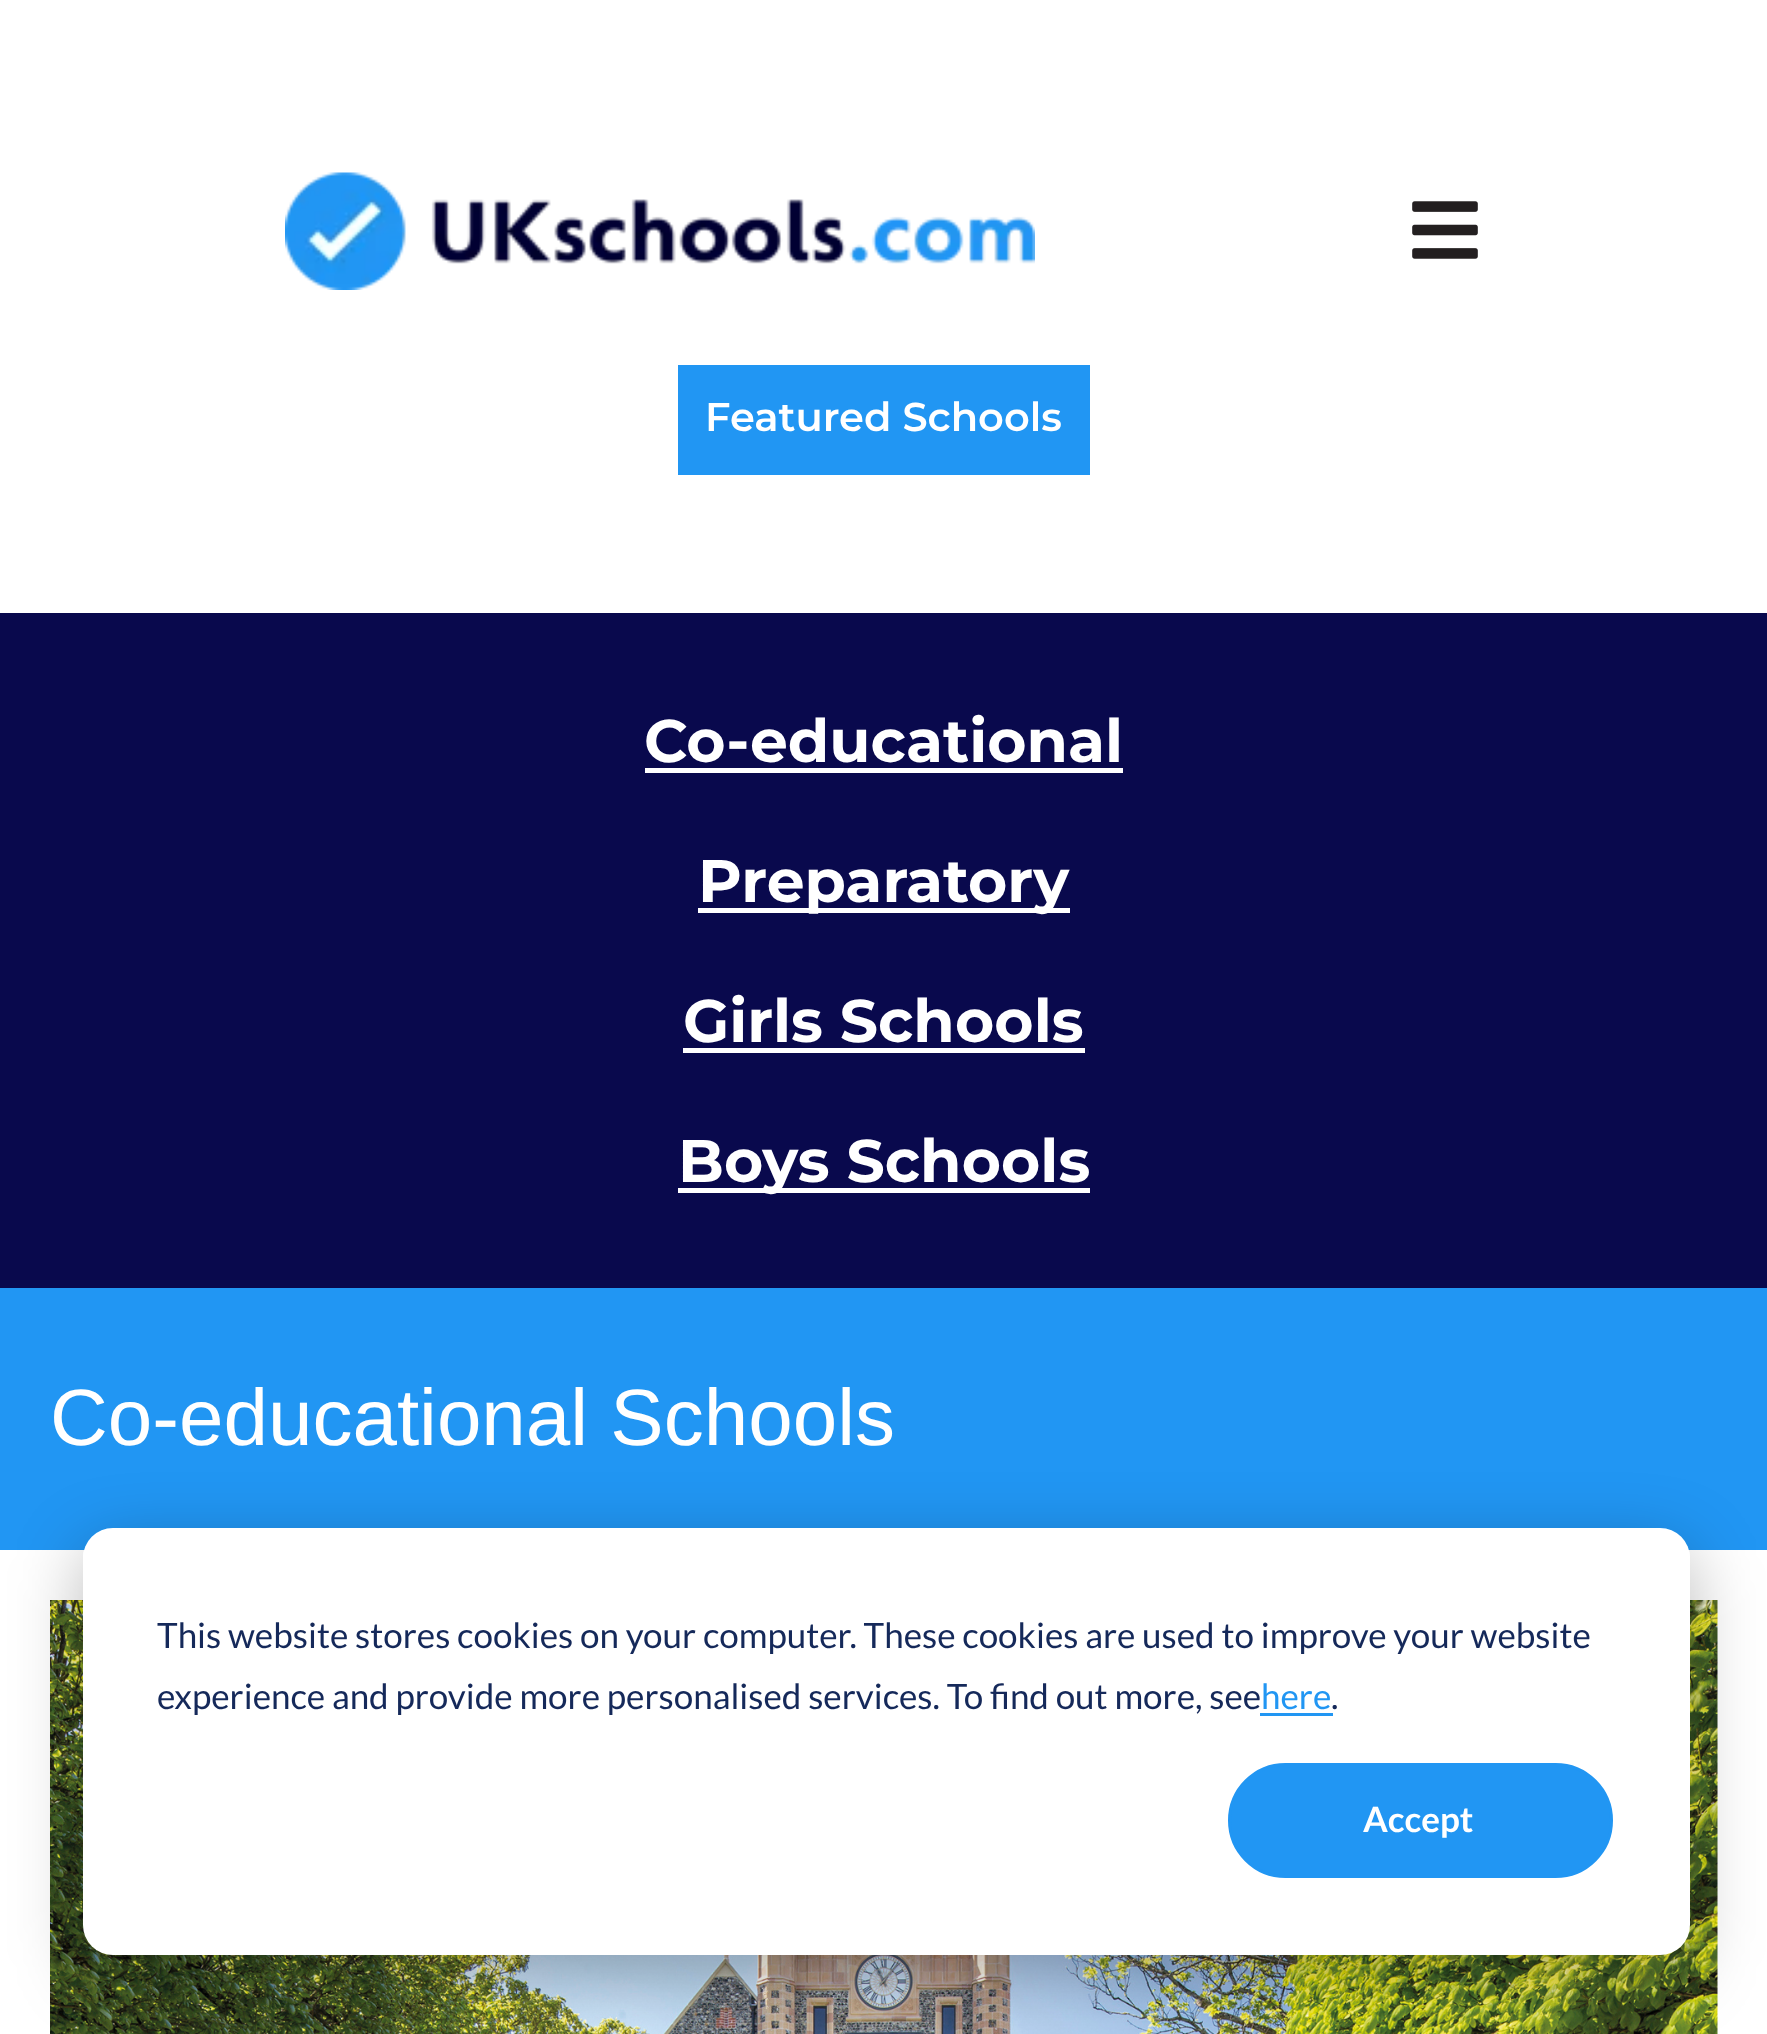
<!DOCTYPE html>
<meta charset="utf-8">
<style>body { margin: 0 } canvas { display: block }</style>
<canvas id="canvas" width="1767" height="2034"></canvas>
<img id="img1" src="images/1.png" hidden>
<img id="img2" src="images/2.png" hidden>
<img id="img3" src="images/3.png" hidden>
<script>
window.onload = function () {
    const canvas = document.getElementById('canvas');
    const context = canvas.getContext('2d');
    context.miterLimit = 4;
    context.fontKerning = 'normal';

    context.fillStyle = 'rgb(255, 255, 255)';
    context.fillRect(0, 0, 1767, 2034);
    context.drawImage(document.getElementById('img1'), 285, 172, 750, 118);
    context.drawImage(document.getElementById('img2'), 1412, 201, 66, 58);
    context.fillStyle = 'rgb(33, 150, 243)';
    context.fillRect(678, 365, 412, 110);
    context.fillStyle = 'rgb(9, 9, 77)';
    context.fillRect(0, 613, 1767, 675);
    context.fillStyle = 'rgb(255, 255, 255)';
    context.fillRect(645, 768, 478, 5);
    context.fillRect(698, 908, 372, 5);
    context.fillRect(683, 1048, 402, 5);
    context.fillRect(678, 1188, 412, 5);
    context.fillStyle = 'rgb(33, 150, 243)';
    context.fillRect(0, 1288, 1767, 262);
    context.drawImage(document.getElementById('img3'), 50, 1600, 1668, 434);
    context.save();
    context.beginPath();
    context.moveTo(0, 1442);
    context.lineTo(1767, 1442);
    context.lineTo(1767, 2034);
    context.lineTo(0, 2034);
    context.closePath();
    context.moveTo(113, 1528);
    context.lineTo(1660, 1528);
    context.bezierCurveTo(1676.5, 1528, 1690, 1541.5, 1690, 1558);
    context.lineTo(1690, 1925);
    context.bezierCurveTo(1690, 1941.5, 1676.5, 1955, 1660, 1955);
    context.lineTo(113, 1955);
    context.bezierCurveTo(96.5, 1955, 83, 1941.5, 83, 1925);
    context.lineTo(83, 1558);
    context.bezierCurveTo(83, 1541.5, 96.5, 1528, 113, 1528);
    context.closePath();
    context.clip('evenodd');
    context.fillStyle = 'rgba(0, 0, 0, 0.28)';
    context.filter = 'blur(35px)';
    context.beginPath();
    context.roundRect(83, 1548, 1607, 427, 30);
    context.fill();
    context.filter = 'none';
    context.restore();
    context.fillStyle = 'rgb(255, 255, 255)';
    context.beginPath();
    context.roundRect(83, 1528, 1607, 427, 30);
    context.fill();
    context.fillStyle = 'rgb(33, 150, 243)';
    context.fillRect(1260, 1713, 73, 3);
    context.beginPath();
    context.roundRect(1229.5, 1764.5, 382, 112, 56);
    context.fill();
    context.strokeStyle = 'rgb(33, 150, 243)';
    context.lineWidth = 3;
    context.stroke();
    context.font = '600 40px Montserrat';
    context.fillStyle = 'rgb(255, 255, 255)';
    context.fillText('Featured Schools', 705, 431);
    context.font = 'bold 60px Montserrat';
    context.fillText('Co-educational', 644, 762);
    context.fillText('Preparatory', 698, 902);
    context.fillText('Girls Schools', 683, 1042);
    context.fillText('Boys Schools', 678, 1182);
    context.font = '80px Liberation Sans';
    context.fillText('Co-educational Schools', 50, 1445);
    context.font = '35px Lato';
    context.fillStyle = 'rgb(21, 41, 90)';
    context.fillText('This website stores cookies on your computer. These cookies are used to improve your website', 157, 1648);
    context.fillText('experience and provide more personalised services. To find out more, see', 157, 1709);
    context.fillStyle = 'rgb(33, 150, 243)';
    context.fillText('here', 1261, 1709);
    context.fillStyle = 'rgb(21, 41, 90)';
    context.fillText('.', 1331, 1709);
    context.font = 'bold 35px Lato';
    context.fillStyle = 'rgb(255, 255, 255)';
    context.fillText('Accept', 1363, 1832);
};
</script>
